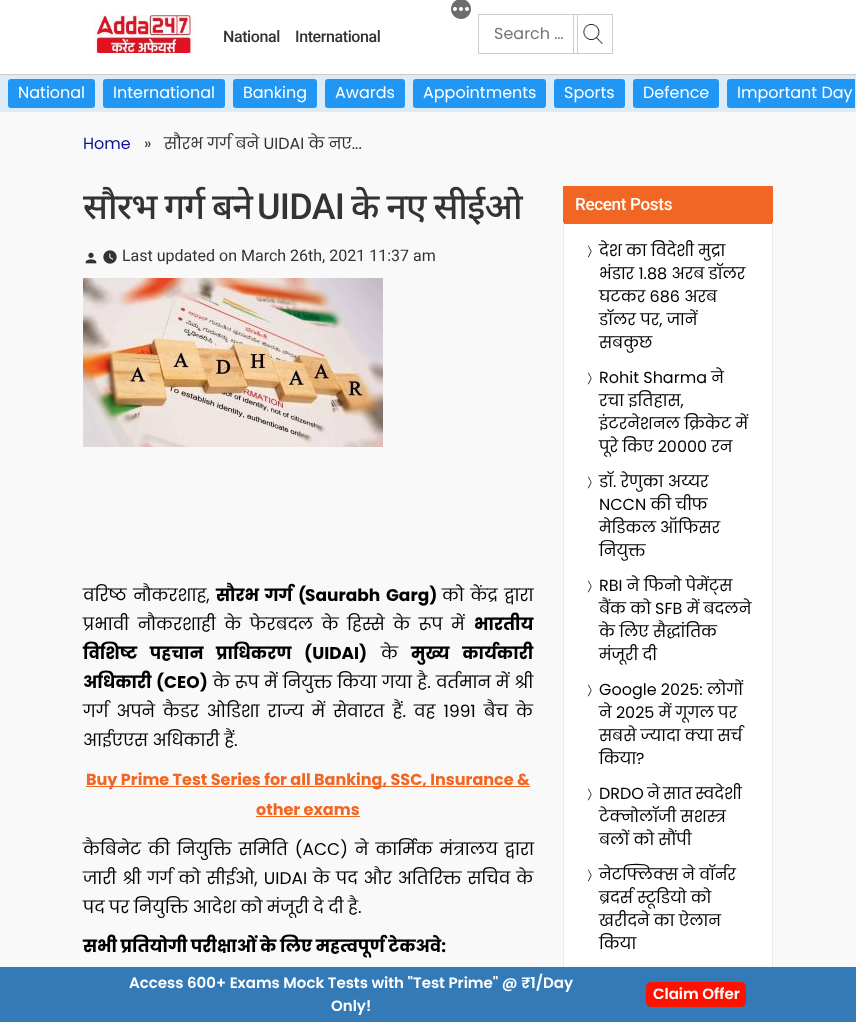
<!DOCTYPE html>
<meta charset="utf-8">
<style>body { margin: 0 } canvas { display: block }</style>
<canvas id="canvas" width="856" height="1022"></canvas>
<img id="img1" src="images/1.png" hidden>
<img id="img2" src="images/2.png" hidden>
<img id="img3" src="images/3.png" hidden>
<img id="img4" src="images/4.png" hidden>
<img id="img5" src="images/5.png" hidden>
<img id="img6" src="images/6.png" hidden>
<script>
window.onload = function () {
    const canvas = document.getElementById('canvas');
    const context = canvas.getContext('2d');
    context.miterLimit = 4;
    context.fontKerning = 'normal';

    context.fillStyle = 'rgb(249, 249, 249)';
    context.fillRect(0, 0, 856, 1022);
    context.fillStyle = 'rgb(255, 255, 255)';
    context.fillRect(0, 0, 856, 74);
    context.fillStyle = 'rgb(204, 204, 204)';
    context.fillRect(0, 74, 856, 1);
    context.drawImage(document.getElementById('img1'), 93, 15, 103, 38);
    context.drawImage(document.getElementById('img2'), 451, 0, 20, 19);
    context.strokeStyle = 'rgb(204, 204, 204)';
    context.strokeRect(478.5, 14.5, 99, 39);
    context.drawImage(document.getElementById('img3'), 583, 24, 20, 20);
    context.strokeRect(573.5, 14.5, 39, 39);
    context.fillStyle = 'rgb(221, 235, 247)';
    context.fillRect(0, 75, 856, 37);
    context.fillStyle = 'rgb(33, 150, 243)';
    context.beginPath();
    context.roundRect(8, 79, 87, 29, 3);
    context.fill();
    context.beginPath();
    context.roundRect(103, 79, 122, 29, 3);
    context.fill();
    context.beginPath();
    context.roundRect(233, 79, 84, 29, 3);
    context.fill();
    context.beginPath();
    context.roundRect(325, 79, 80, 29, 3);
    context.fill();
    context.beginPath();
    context.roundRect(413, 79, 133, 29, 3);
    context.fill();
    context.beginPath();
    context.roundRect(554, 79, 71, 29, 3);
    context.fill();
    context.beginPath();
    context.roundRect(633, 79, 86, 29, 3);
    context.fill();
    context.beginPath();
    context.roundRect(727, 79, 128, 29, [3, 0, 0, 3]);
    context.fill();
    context.drawImage(document.getElementById('img4'), 85, 252, 12, 12);
    context.drawImage(document.getElementById('img5'), 103, 250, 14, 14);
    context.drawImage(document.getElementById('img6'), 83, 278, 300, 169);
    context.fillStyle = 'rgb(241, 102, 34)';
    context.fillRect(86, 786, 444, 1);
    context.fillRect(256, 816, 104, 1);
    context.fillRect(563, 186, 210, 36);
    context.fillStyle = 'rgb(255, 255, 255)';
    context.fillRect(564, 224, 208, 743);
    context.fillStyle = 'rgb(241, 102, 34)';
    context.beginPath();
    context.moveTo(563, 222);
    context.lineTo(773, 222);
    context.lineTo(772, 224);
    context.lineTo(564, 224);
    context.closePath();
    context.fill();
    context.fillStyle = 'rgb(236, 235, 235)';
    context.beginPath();
    context.moveTo(773, 222);
    context.lineTo(773, 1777);
    context.lineTo(772, 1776);
    context.lineTo(772, 224);
    context.closePath();
    context.fill();
    context.beginPath();
    context.moveTo(563, 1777);
    context.lineTo(563, 222);
    context.lineTo(564, 224);
    context.lineTo(564, 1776);
    context.closePath();
    context.fill();
    context.fillStyle = 'rgb(51, 122, 183)';
    context.fillRect(0, 967, 856, 55);
    context.fillStyle = 'rgb(255, 17, 0)';
    context.beginPath();
    context.roundRect(646, 982, 100, 25, 5);
    context.fill();
    context.letterSpacing = '-0.4px';
    context.font = '500 16px Roboto';
    context.fillStyle = 'rgb(51, 51, 51)';
    context.fillText('National', 223, 42);
    context.fillText('International', 295, 42);
    context.letterSpacing = '0px';
    context.font = '16px Poppins';
    context.fillStyle = 'rgb(117, 117, 117)';
    context.fillText('Search …', 494, 39);
    context.fillStyle = 'rgb(255, 255, 255)';
    context.fillText('National', 18, 98);
    context.fillText('International', 113, 98);
    context.fillText('Banking', 243, 98);
    context.fillText('Awards', 335, 98);
    context.fillText('Appointments', 423, 98);
    context.fillText('Sports', 564, 98);
    context.fillText('Defence', 643, 98);
    context.fillText('Important Day', 737, 98);
    context.fillStyle = 'rgb(13, 18, 154)';
    context.fillText('Home', 83, 149);
    context.fillStyle = 'rgb(51, 51, 51)';
    context.fillText('»', 144, 149);
    context.fillText('सौरभ गर्ग बने UIDAI के नए...', 164, 149);
    context.letterSpacing = '-0.75px';
    context.wordSpacing = '-1px';
    context.font = '500 36px Noto Sans';
    context.fillText('सौरभ गर्ग बने', 83, 219);
    context.wordSpacing = '0px';
    context.font = '500 36px Roboto';
    context.fillText('UIDAI', 257, 219);
    context.wordSpacing = '-1px';
    context.font = '500 36px Noto Sans';
    context.fillText('के नए सीईओ', 351, 219);
    context.letterSpacing = '0px';
    context.wordSpacing = '0px';
    context.font = '16px Roboto';
    context.fillText('Last updated on March 26th, 2021 11:37 am', 122, 261);
    context.wordSpacing = '2px';
    context.font = '17px Poppins';
    context.fillStyle = 'rgb(0, 0, 0)';
    context.fillText('वरिष्ठ नौकरशाह,', 83, 601);
    context.font = 'bold 17px Poppins';
    context.fillText('सौरभ गर्ग (', 216, 601);
    context.fillText('Saurabh Garg)', 305, 601);
    context.font = '17px Poppins';
    context.fillText('को केंद्र द्वारा', 442, 601);
    context.wordSpacing = '4px';
    context.fillText('प्रभावी नौकरशाही के फेरबदल के हिस्से के रूप में', 83, 630);
    context.wordSpacing = '0px';
    context.font = 'bold 17px Poppins';
    context.fillText('भारतीय', 474, 630);
    context.wordSpacing = '9px';
    context.fillText('विशिष्ट पहचान प्राधिकरण (UIDAI)', 83, 659);
    context.wordSpacing = '0px';
    context.font = '17px Poppins';
    context.fillText('के', 381, 659);
    context.wordSpacing = '9px';
    context.font = 'bold 17px Poppins';
    context.fillText('मुख्य कार्यकारी', 411, 659);
    context.wordSpacing = '1px';
    context.fillText('अधिकारी (CEO)', 83, 688);
    context.wordSpacing = '0.6px';
    context.font = '17px Poppins';
    context.fillText('के रूप में नियुक्त किया गया है. वर्तमान में श्री', 213, 688);
    context.wordSpacing = '3.5px';
    context.fillText('गर्ग अपने कैडर ओडिशा राज्य में सेवारत हैं. वह 1991 बैच के', 83, 717);
    context.wordSpacing = '0px';
    context.fillText('आईएएस अधिकारी हैं.', 83, 746);
    context.font = 'bold 16px Poppins';
    context.fillStyle = 'rgb(241, 102, 34)';
    context.fillText('Buy Prime Test Series for all Banking, SSC, Insurance &', 86, 785);
    context.fillText('other exams', 256, 815);
    context.wordSpacing = '2.5px';
    context.font = '17px Poppins';
    context.fillStyle = 'rgb(0, 0, 0)';
    context.fillText('कैबिनेट की नियुक्ति समिति (ACC) ने कार्मिक मंत्रालय द्वारा', 83, 855);
    context.wordSpacing = '1.5px';
    context.fillText('जारी श्री गर्ग को सीईओ, UIDAI के पद और अतिरिक्त सचिव के', 83, 884);
    context.wordSpacing = '0px';
    context.fillText('पद पर नियुक्ति आदेश को मंजूरी दे दी है.', 83, 913);
    context.font = 'bold 17px Poppins';
    context.fillText('सभी प्रतियोगी परीक्षाओं के लिए महत्वपूर्ण टेकअवे:', 83, 952);
    context.letterSpacing = '-0.3px';
    context.font = '500 17px Roboto';
    context.fillStyle = 'rgb(255, 255, 255)';
    context.fillText('Recent Posts', 575, 210);
    context.letterSpacing = '0px';
    context.font = '16px Poppins';
    context.fillStyle = 'rgb(0, 0, 0)';
    context.fillText('देश का विदेशी मुद्रा', 599, 256);
    context.font = '500 14px WenQuanYi Zen Hei';
    context.save();
    context.translate(596, 258);
    context.rotate(-90 * Math.PI / 180);
    context.fillText('﹀', 0, 0);
    context.restore();
    context.font = '16px Poppins';
    context.fillText('भंडार 1.88 अरब डॉलर', 599, 279);
    context.fillText('घटकर 686 अरब', 599, 302);
    context.fillText('डॉलर पर, जानें', 599, 325);
    context.fillText('सबकुछ', 599, 348);
    context.font = '500 14px WenQuanYi Zen Hei';
    context.save();
    context.translate(596, 385);
    context.rotate(-90 * Math.PI / 180);
    context.fillText('﹀', 0, 0);
    context.restore();
    context.font = '16px Poppins';
    context.fillText('Rohit Sharma ने', 599, 383);
    context.fillText('रचा इतिहास,', 599, 406);
    context.fillText('इंटरनेशनल क्रिकेट में', 599, 429);
    context.fillText('पूरे किए 20000 रन', 599, 452);
    context.font = '500 14px WenQuanYi Zen Hei';
    context.save();
    context.translate(596, 489);
    context.rotate(-90 * Math.PI / 180);
    context.fillText('﹀', 0, 0);
    context.restore();
    context.font = '16px Poppins';
    context.fillText('डॉ. रेणुका अय्यर', 599, 487);
    context.fillText('NCCN की चीफ', 599, 510);
    context.fillText('मेडिकल ऑफिसर', 599, 533);
    context.fillText('नियुक्त', 599, 556);
    context.font = '500 14px WenQuanYi Zen Hei';
    context.save();
    context.translate(596, 593);
    context.rotate(-90 * Math.PI / 180);
    context.fillText('﹀', 0, 0);
    context.restore();
    context.font = '16px Poppins';
    context.fillText('RBI ने फिनो पेमेंट्स', 599, 591);
    context.fillText('बैंक को SFB में बदलने', 599, 614);
    context.fillText('के लिए सैद्धांतिक', 599, 637);
    context.fillText('मंजूरी दी', 599, 660);
    context.font = '500 14px WenQuanYi Zen Hei';
    context.save();
    context.translate(596, 697);
    context.rotate(-90 * Math.PI / 180);
    context.fillText('﹀', 0, 0);
    context.restore();
    context.font = '16px Poppins';
    context.fillText('Google 2025: लोगों', 599, 695);
    context.fillText('ने 2025 में गूगल पर', 599, 718);
    context.fillText('सबसे ज्यादा क्या सर्च', 599, 741);
    context.fillText('किया?', 599, 764);
    context.font = '500 14px WenQuanYi Zen Hei';
    context.save();
    context.translate(596, 801);
    context.rotate(-90 * Math.PI / 180);
    context.fillText('﹀', 0, 0);
    context.restore();
    context.wordSpacing = '-1px';
    context.font = '16px Poppins';
    context.fillText('DRDO ने सात स्वदेशी', 599, 799);
    context.wordSpacing = '0px';
    context.fillText('टेक्नोलॉजी सशस्त्र', 599, 822);
    context.fillText('बलों को सौंपी', 599, 845);
    context.fillText('नेटफ्लिक्स ने वॉर्नर', 599, 880);
    context.font = '500 14px WenQuanYi Zen Hei';
    context.save();
    context.translate(596, 882);
    context.rotate(-90 * Math.PI / 180);
    context.fillText('﹀', 0, 0);
    context.restore();
    context.font = '16px Poppins';
    context.fillText('ब्रदर्स स्टूडियो को', 599, 903);
    context.fillText('खरीदने का ऐलान', 599, 926);
    context.fillText('किया', 599, 949);
    context.font = '600 15px Poppins';
    context.fillStyle = 'rgb(255, 255, 255)';
    context.fillText('Access 600+ Exams Mock Tests with "Test Prime" @ ₹1/Day', 129, 988);
    context.fillText('Only!', 331, 1011);
    context.fillText('Claim Offer', 653, 999);
};
</script>
